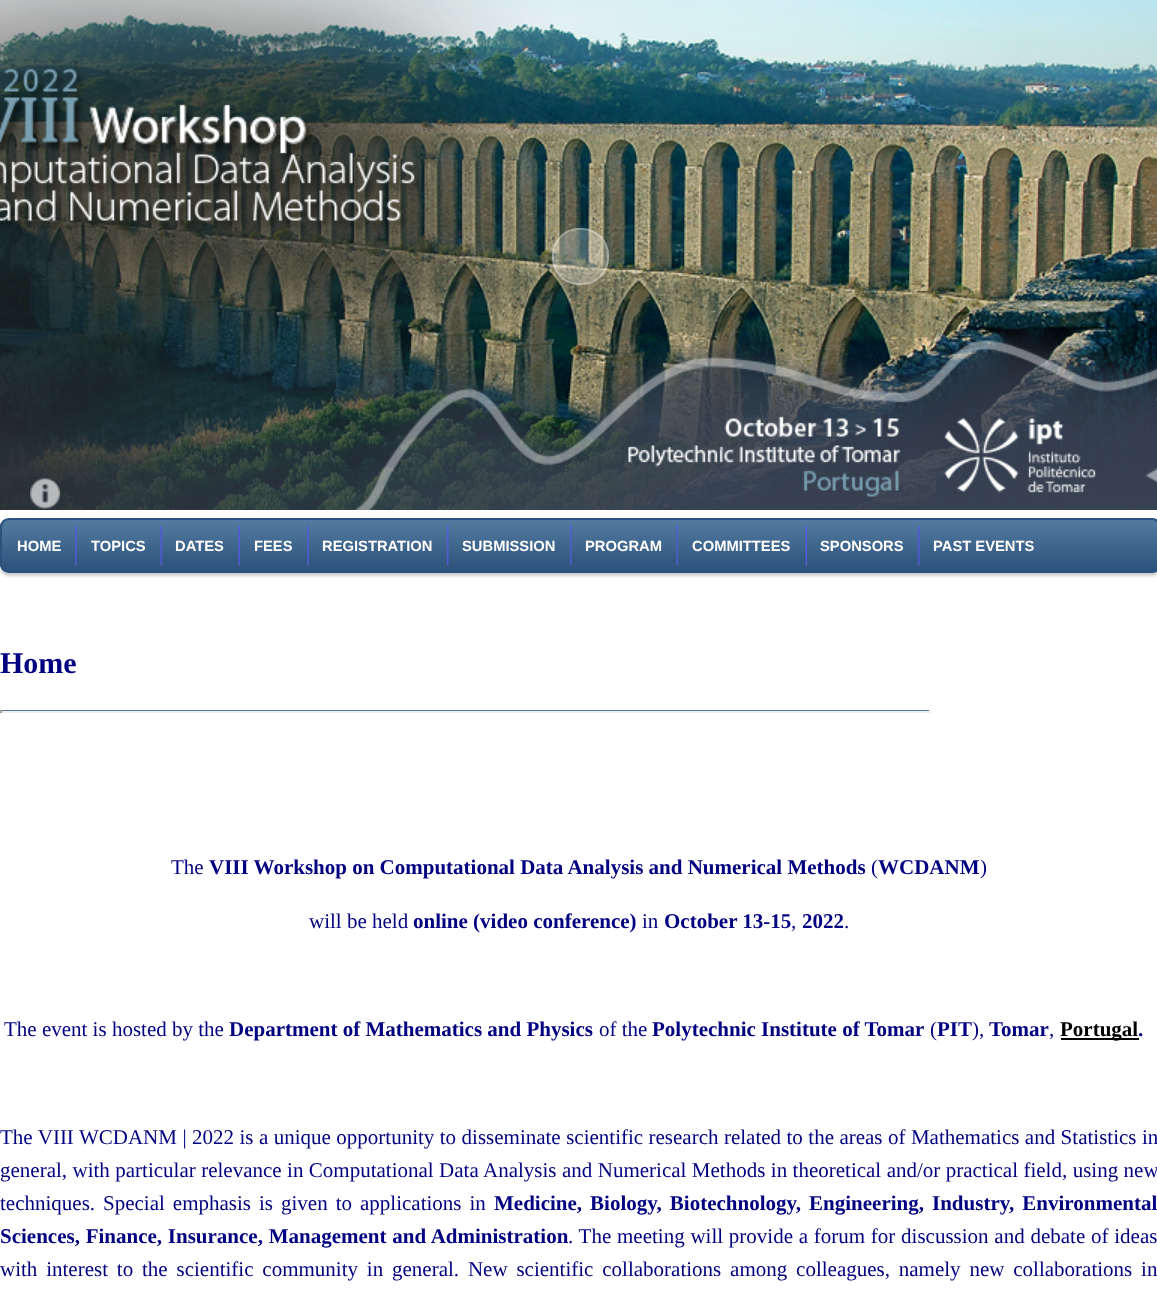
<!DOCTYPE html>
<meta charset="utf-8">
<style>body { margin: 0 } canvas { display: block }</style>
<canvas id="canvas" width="1157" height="1300"></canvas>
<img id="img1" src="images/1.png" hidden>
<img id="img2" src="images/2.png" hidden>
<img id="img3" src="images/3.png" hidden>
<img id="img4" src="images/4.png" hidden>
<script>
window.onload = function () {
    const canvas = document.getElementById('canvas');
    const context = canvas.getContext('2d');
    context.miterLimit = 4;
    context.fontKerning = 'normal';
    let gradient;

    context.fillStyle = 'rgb(255, 255, 255)';
    context.fillRect(0, 0, 1157, 1300);
    context.drawImage(document.getElementById('img1'), 0, 0, 1157, 510);
    context.drawImage(document.getElementById('img2'), 30, 478, 30, 31);
    context.fillStyle = 'rgba(255, 255, 255, 0.26)';
    context.beginPath();
    context.roundRect(552, 228, 57, 57, 27);
    context.fill();
    context.beginPath();
    context.roundRect(553, 229, 55, 55, 26);
    context.strokeStyle = 'rgba(255, 255, 255, 0.28)';
    context.lineWidth = 2;
    context.stroke();
    context.fillStyle = 'rgb(204, 204, 204)';
    context.filter = 'blur(1.5px)';
    context.beginPath();
    context.roundRect(0, 521, 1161, 55, 9);
    context.fill();
    context.filter = 'none';
    context.save();
    context.beginPath();
    context.roundRect(0, 518, 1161, 55, 9);
    context.clip();
    gradient = context.createLinearGradient(581, 519, 581, 572);
    gradient.addColorStop(0, 'rgb(84, 123, 159)');
    gradient.addColorStop(1, 'rgb(43, 81, 124)');
    context.fillStyle = gradient;
    context.fillRect(0, 519, 1157, 53);
    context.restore();
    context.beginPath();
    context.roundRect(1, 519, 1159, 53, 8);
    context.strokeStyle = 'rgb(43, 81, 124)';
    context.stroke();
    context.drawImage(document.getElementById('img3'), 75, 525, 2, 41);
    context.drawImage(document.getElementById('img4'), 160, 525, 2, 41);
    context.drawImage(document.getElementById('img4'), 238, 525, 2, 41);
    context.drawImage(document.getElementById('img4'), 307, 525, 2, 41);
    context.drawImage(document.getElementById('img3'), 447, 525, 2, 41);
    context.drawImage(document.getElementById('img3'), 570, 525, 2, 41);
    context.drawImage(document.getElementById('img4'), 676, 525, 2, 41);
    context.drawImage(document.getElementById('img4'), 805, 525, 2, 41);
    context.drawImage(document.getElementById('img3'), 918, 525, 2, 41);
    context.fillStyle = 'rgb(84, 123, 159)';
    context.fillRect(0, 710, 930, 1);
    context.fillStyle = 'rgb(238, 238, 238)';
    context.fillRect(929, 710, 2, 3);
    context.fillRect(0, 711, 930, 2);
    context.fillStyle = 'rgb(159, 159, 159)';
    context.fillRect(0, 710, 2, 3);
    context.fillStyle = 'rgb(0, 0, 0)';
    context.fillRect(1061, 1038, 78, 2);
    context.font = 'bold 14.75px Liberation Sans';
    context.fillStyle = 'rgb(255, 255, 255)';
    context.fillText('HOME', 17, 551);
    context.fillText('TOPICS', 91, 551);
    context.fillText('DATES', 175, 551);
    context.fillText('FEES', 254, 551);
    context.fillText('REGISTRATION', 322, 551);
    context.fillText('SUBMISSION', 462, 551);
    context.fillText('PROGRAM', 585, 551);
    context.fillText('COMMITTEES', 692, 551);
    context.fillText('SPONSORS', 820, 551);
    context.fillText('PAST EVENTS', 933, 551);
    context.font = 'bold 30px Liberation Serif';
    context.fillStyle = 'rgb(0, 0, 128)';
    context.fillText('Home', 0, 673);
    context.font = '21px Liberation Serif';
    context.fillText('The', 171, 874);
    context.font = 'bold 21px Liberation Serif';
    context.fillText('VIII Workshop on Computational Data Analysis and Numerical Methods', 209, 874);
    context.font = '21px Liberation Serif';
    context.fillText('(', 871, 874);
    context.font = 'bold 21px Liberation Serif';
    context.fillText('WCDANM', 878, 874);
    context.font = '21px Liberation Serif';
    context.fillText(')', 980, 874);
    context.fillText('will be held', 309, 928);
    context.font = 'bold 21px Liberation Serif';
    context.fillText('online (video conference)', 413, 928);
    context.font = '21px Liberation Serif';
    context.fillText('in', 642, 928);
    context.font = 'bold 21px Liberation Serif';
    context.fillText('October 13-15', 664, 928);
    context.font = '21px Liberation Serif';
    context.fillText(',', 791, 928);
    context.font = 'bold 21px Liberation Serif';
    context.fillText('2022', 802, 928);
    context.font = '21px Liberation Serif';
    context.fillText('.', 844, 928);
    context.fillText('The event is hosted by the', 4, 1036);
    context.font = 'bold 21px Liberation Serif';
    context.fillText('Department of Mathematics and Physics', 229, 1036);
    context.font = '21px Liberation Serif';
    context.fillText('of the', 599, 1036);
    context.font = 'bold 21px Liberation Serif';
    context.fillText('Polytechnic Institute of Tomar', 652, 1036);
    context.font = '21px Liberation Serif';
    context.fillText('(', 930, 1036);
    context.font = 'bold 21px Liberation Serif';
    context.fillText('PIT', 937, 1036);
    context.font = '21px Liberation Serif';
    context.fillText('),', 972, 1036);
    context.font = 'bold 21px Liberation Serif';
    context.fillText('Tomar', 989, 1036);
    context.font = '21px Liberation Serif';
    context.fillText(',', 1049, 1036);
    context.font = 'bold 21px Liberation Serif';
    context.fillStyle = 'rgb(0, 0, 0)';
    context.fillText('Portugal', 1060, 1036);
    context.fillStyle = 'rgb(0, 0, 128)';
    context.fillText('.', 1138, 1036);
    context.wordSpacing = '0.2px';
    context.font = '21px Liberation Serif';
    context.fillText('The VIII WCDANM | 2022 is a unique opportunity to disseminate scientific research related to the areas of Mathematics and Statistics in', 0, 1144);
    context.fillText('general, with particular relevance in Computational Data Analysis and Numerical Methods in theoretical and/or practical field, using new', 0, 1177);
    context.wordSpacing = '2.75px';
    context.fillText('techniques. Special emphasis is given to applications in', 0, 1210);
    context.font = 'bold 21px Liberation Serif';
    context.fillText('Medicine, Biology, Biotechnology, Engineering, Industry, Environmental', 494, 1210);
    context.wordSpacing = '0.5px';
    context.fillText('Sciences, Finance, Insurance, Management and Administration', 0, 1243);
    context.font = '21px Liberation Serif';
    context.fillText('. The meeting will provide a forum for discussion and debate of ideas', 568, 1243);
    context.wordSpacing = '3.6px';
    context.fillText('with interest to the scientific community in general. New scientific collaborations among colleagues, namely new collaborations in', 0, 1276);
};
</script>
